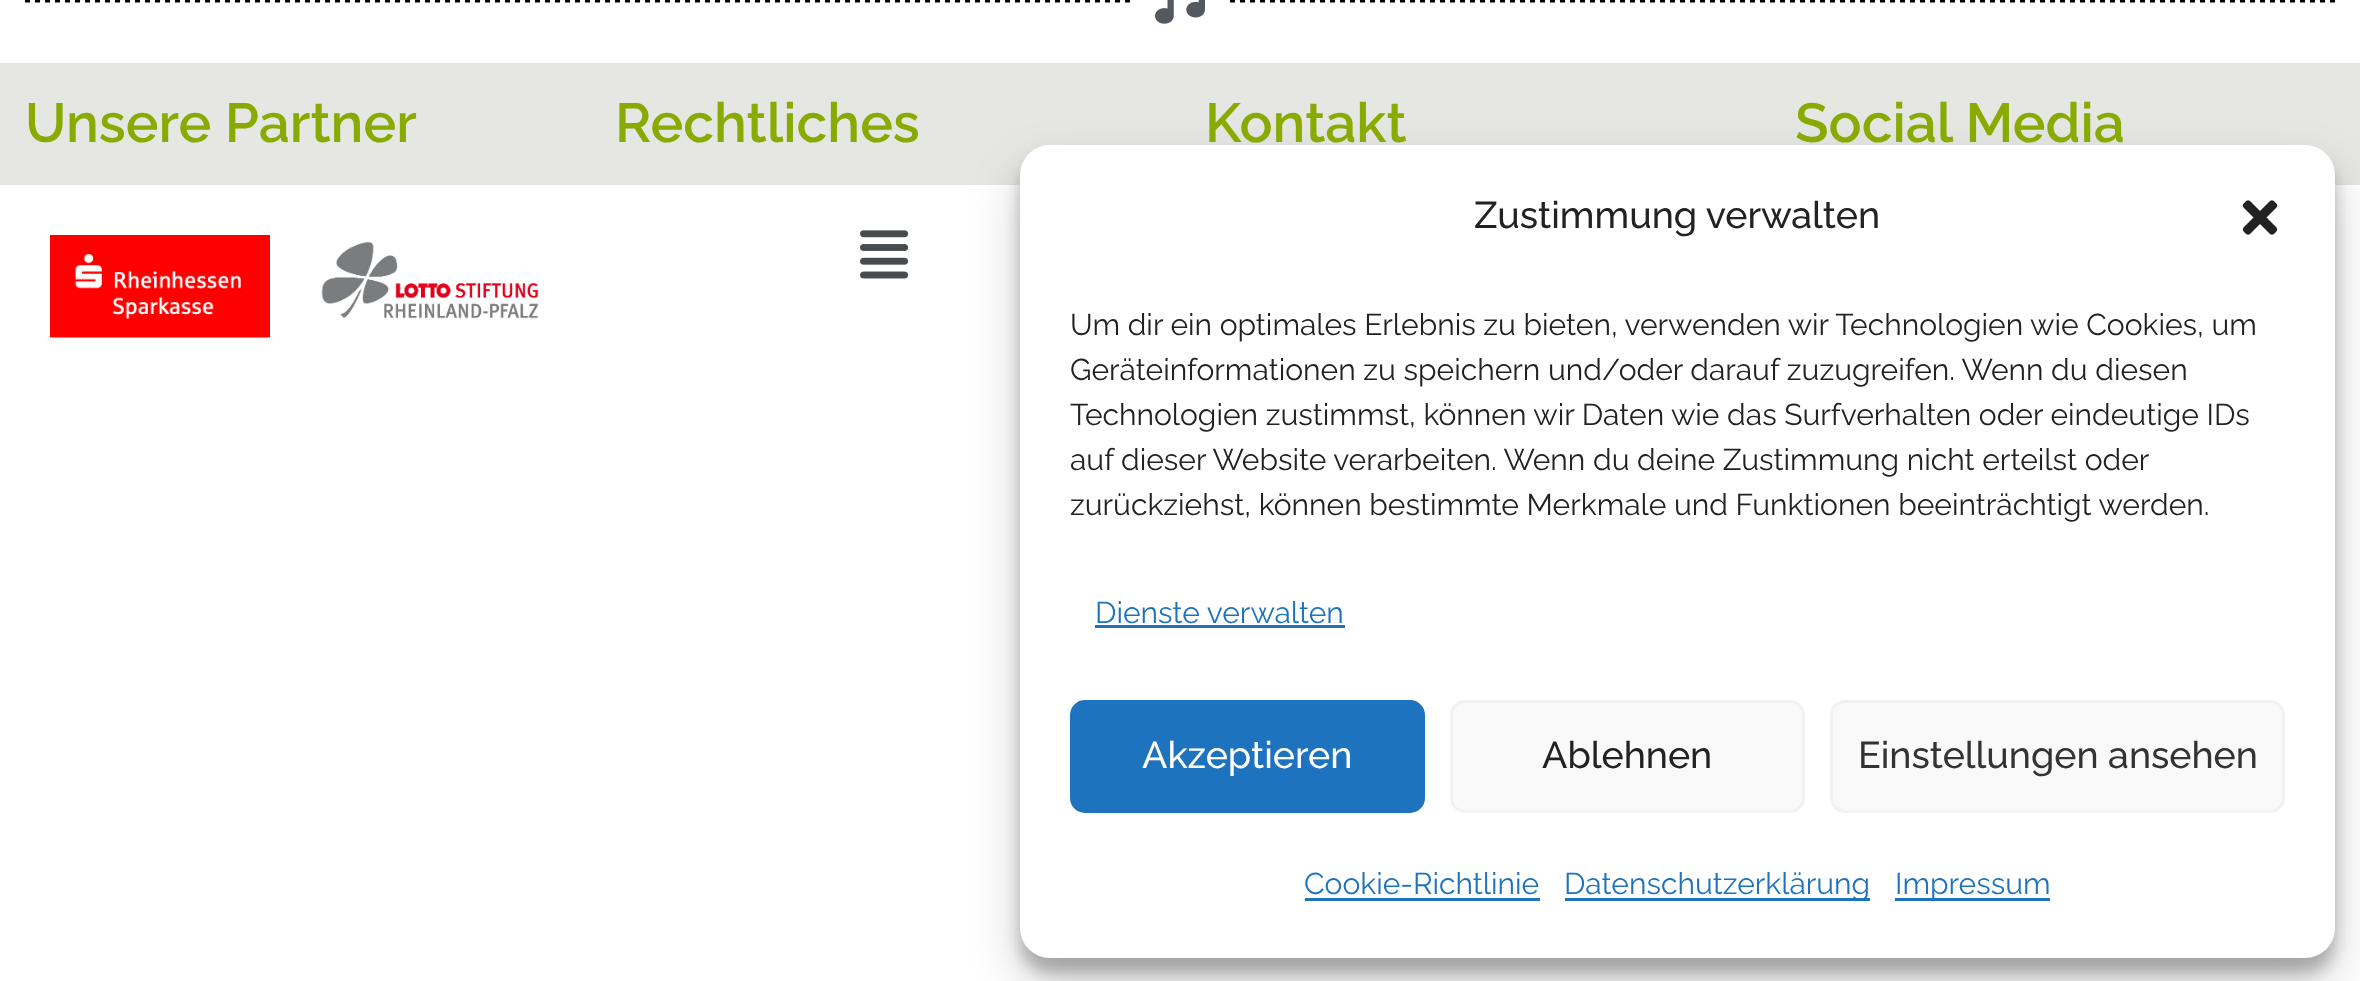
<!DOCTYPE html>
<meta charset="utf-8">
<style>body { margin: 0 } canvas { display: block }</style>
<canvas id="canvas" width="2360" height="981"></canvas>
<img id="img1" src="images/1.png" hidden>
<img id="img2" src="images/2.png" hidden>
<img id="img3" src="images/3.png" hidden>
<img id="img4" src="images/4.png" hidden>
<img id="img5" src="images/5.png" hidden>
<script>
window.onload = function () {
    const canvas = document.getElementById('canvas');
    const context = canvas.getContext('2d');
    context.miterLimit = 4;
    context.fontKerning = 'normal';

    context.fillStyle = 'rgb(255, 255, 255)';
    context.fillRect(0, 0, 2360, 981);
    context.beginPath();
    context.moveTo(25, 0);
    context.lineTo(1130, 0);
    context.strokeStyle = 'rgb(0, 0, 0)';
    context.lineWidth = 5;
    context.setLineDash([5, 5]);
    context.stroke();
    context.drawImage(document.getElementById('img1'), 1155, 0, 50, 24);
    context.beginPath();
    context.moveTo(1230, 0);
    context.lineTo(2335, 0);
    context.stroke();
    context.fillStyle = 'rgb(230, 230, 226)';
    context.fillRect(0, 63, 1180, 122);
    context.fillRect(1180, 63, 590, 82);
    context.fillRect(1770, 63, 590, 122);
    context.drawImage(document.getElementById('img2'), 50, 235, 220, 103);
    context.drawImage(document.getElementById('img3'), 321, 241, 218, 78);
    context.drawImage(document.getElementById('img4'), 860, 230, 49, 49);
    context.fillStyle = 'rgba(0, 0, 0, 0.23)';
    context.filter = 'blur(7.5px)';
    context.beginPath();
    context.roundRect(1020, 160, 1315, 813, 30);
    context.fill();
    context.filter = 'none';
    context.fillStyle = 'rgba(0, 0, 0, 0.19)';
    context.filter = 'blur(25px)';
    context.beginPath();
    context.roundRect(1020, 170, 1315, 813, 30);
    context.fill();
    context.filter = 'none';
    context.fillStyle = 'rgb(255, 255, 255)';
    context.beginPath();
    context.roundRect(1020, 145, 1315, 813, 30);
    context.fill();
    context.drawImage(document.getElementById('img5'), 2242, 200, 36, 35);
    context.fillStyle = 'rgb(30, 115, 190)';
    context.fillRect(1095, 625, 250, 3);
    context.beginPath();
    context.roundRect(1071.5, 701.5, 352, 110, 13.5);
    context.fill();
    context.strokeStyle = 'rgb(30, 115, 190)';
    context.lineWidth = 3;
    context.setLineDash([]);
    context.stroke();
    context.fillStyle = 'rgb(249, 249, 249)';
    context.beginPath();
    context.roundRect(1451.5, 701.5, 352, 110, 13.5);
    context.fill();
    context.strokeStyle = 'rgb(242, 242, 242)';
    context.stroke();
    context.beginPath();
    context.roundRect(1831.5, 701.5, 452, 110, 13.5);
    context.fill();
    context.stroke();
    context.fillStyle = 'rgb(30, 115, 190)';
    context.fillRect(1305, 898, 235, 3);
    context.fillRect(1565, 898, 305, 3);
    context.fillRect(1895, 898, 155, 3);
    context.font = '600 55px Raleway';
    context.fillStyle = 'rgb(137, 170, 1)';
    context.fillText('Unsere Partner', 25, 142);
    context.fillText('Rechtliches', 615, 142);
    context.fillText('Kontakt', 1205, 142);
    context.fillText('Social Media', 1795, 142);
    context.font = '500 37.5px Raleway';
    context.fillStyle = 'rgb(34, 34, 34)';
    context.fillText('Zustimmung verwalten', 1474, 228);
    context.font = '30px Raleway';
    context.fillText('Um dir ein optimales Erlebnis zu bieten, verwenden wir Technologien wie Cookies, um', 1070, 335);
    context.fillText('Geräteinformationen zu speichern und/oder darauf zuzugreifen. Wenn du diesen', 1070, 380);
    context.fillText('Technologien zustimmst, können wir Daten wie das Surfverhalten oder eindeutige IDs', 1070, 425);
    context.fillText('auf dieser Website verarbeiten. Wenn du deine Zustimmung nicht erteilst oder', 1070, 470);
    context.fillText('zurückziehst, können bestimmte Merkmale und Funktionen beeinträchtigt werden.', 1070, 515);
    context.fillStyle = 'rgb(30, 115, 190)';
    context.fillText('Dienste verwalten', 1095, 623);
    context.font = '500 37.5px Raleway';
    context.fillStyle = 'rgb(255, 255, 255)';
    context.fillText('Akzeptieren', 1142, 768);
    context.fillStyle = 'rgb(34, 34, 34)';
    context.fillText('Ablehnen', 1542, 768);
    context.fillStyle = 'rgb(51, 51, 51)';
    context.fillText('Einstellungen ansehen', 1858, 768);
    context.font = '30px Raleway';
    context.fillStyle = 'rgb(30, 115, 190)';
    context.fillText('Cookie-Richtlinie', 1304, 894);
    context.fillText('Datenschutzerklärung', 1564, 894);
    context.fillText('Impressum', 1895, 894);
};
</script>
